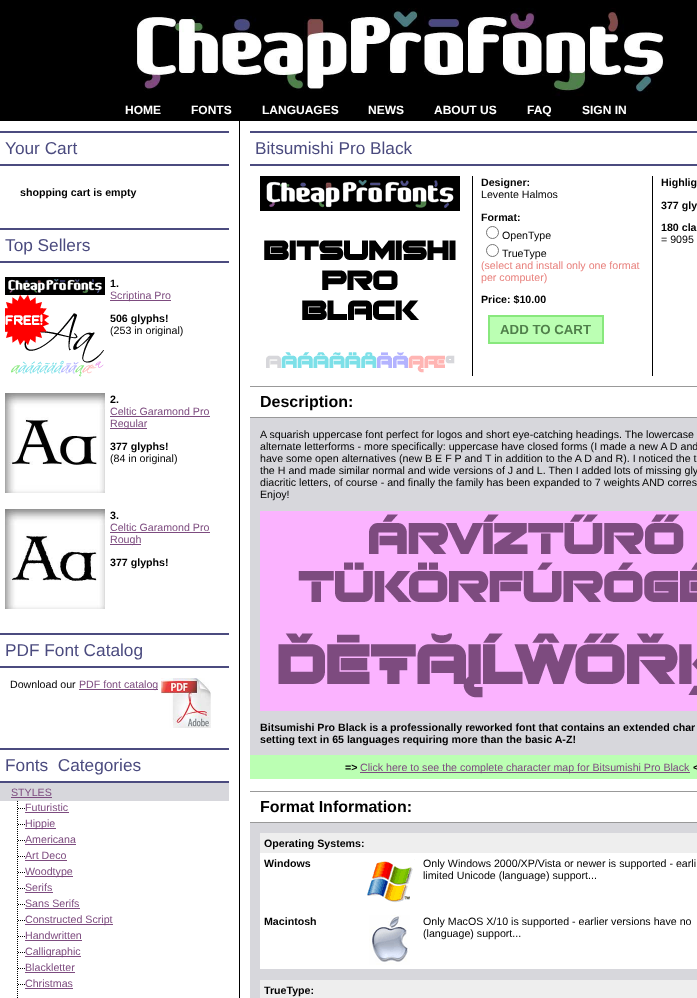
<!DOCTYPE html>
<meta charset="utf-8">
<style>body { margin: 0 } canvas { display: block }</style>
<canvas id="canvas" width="697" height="998"></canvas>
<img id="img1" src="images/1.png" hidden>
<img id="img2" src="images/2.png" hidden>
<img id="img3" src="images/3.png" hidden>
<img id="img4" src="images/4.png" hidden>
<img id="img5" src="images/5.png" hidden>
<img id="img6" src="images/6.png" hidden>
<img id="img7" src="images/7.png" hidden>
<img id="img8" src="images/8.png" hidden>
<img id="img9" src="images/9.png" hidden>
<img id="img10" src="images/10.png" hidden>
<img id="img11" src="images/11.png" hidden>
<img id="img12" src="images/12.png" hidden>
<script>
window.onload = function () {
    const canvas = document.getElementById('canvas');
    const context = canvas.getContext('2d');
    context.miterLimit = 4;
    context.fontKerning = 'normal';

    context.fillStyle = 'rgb(255, 255, 255)';
    context.fillRect(0, 0, 697, 998);
    context.drawImage(document.getElementById('img1'), 0, 0, 697, 100);
    context.fillStyle = 'rgb(0, 0, 0)';
    context.fillRect(0, 100, 697, 21);
    context.fillRect(239, 121, 1, 877);
    context.fillStyle = 'rgb(75, 75, 127)';
    context.fillRect(0, 131, 229, 2);
    context.fillRect(0, 164, 229, 2);
    context.fillRect(0, 228, 229, 2);
    context.fillRect(0, 261, 229, 2);
    context.drawImage(document.getElementById('img2'), 5, 277, 100, 100);
    context.fillStyle = 'rgb(125, 75, 127)';
    context.fillRect(110, 300, 61, 1);
    context.drawImage(document.getElementById('img3'), 5, 393, 100, 100);
    context.fillRect(110, 416, 100, 1);
    context.fillRect(110, 428, 37, 1);
    context.drawImage(document.getElementById('img4'), 5, 509, 100, 100);
    context.fillRect(110, 532, 100, 1);
    context.fillRect(110, 544, 31, 1);
    context.fillStyle = 'rgb(75, 75, 127)';
    context.fillRect(0, 633, 229, 2);
    context.fillRect(0, 666, 229, 2);
    context.fillStyle = 'rgb(125, 75, 127)';
    context.fillRect(79, 689, 79, 1);
    context.drawImage(document.getElementById('img5'), 161, 678, 50, 50);
    context.fillStyle = 'rgb(75, 75, 127)';
    context.fillRect(0, 748, 229, 2);
    context.fillRect(0, 781, 229, 2);
    context.fillStyle = 'rgb(215, 215, 220)';
    context.fillRect(0, 783, 229, 18);
    context.fillStyle = 'rgb(125, 75, 127)';
    context.fillRect(11, 797, 41, 1);
    context.drawImage(document.getElementById('img6'), 17, 801, 8, 15);
    context.fillRect(25, 812, 44, 1);
    context.drawImage(document.getElementById('img6'), 17, 817, 8, 15);
    context.fillRect(25, 828, 31, 1);
    context.drawImage(document.getElementById('img6'), 17, 833, 8, 15);
    context.fillRect(25, 844, 51, 1);
    context.drawImage(document.getElementById('img6'), 17, 849, 8, 15);
    context.fillRect(25, 860, 42, 1);
    context.drawImage(document.getElementById('img6'), 17, 865, 8, 15);
    context.fillRect(25, 876, 48, 1);
    context.drawImage(document.getElementById('img6'), 17, 881, 8, 15);
    context.fillRect(25, 892, 28, 1);
    context.drawImage(document.getElementById('img6'), 17, 897, 8, 15);
    context.fillRect(25, 908, 55, 1);
    context.drawImage(document.getElementById('img6'), 17, 913, 8, 15);
    context.fillRect(25, 924, 88, 1);
    context.drawImage(document.getElementById('img6'), 17, 929, 8, 15);
    context.fillRect(25, 940, 57, 1);
    context.drawImage(document.getElementById('img6'), 17, 945, 8, 15);
    context.fillRect(25, 956, 56, 1);
    context.drawImage(document.getElementById('img6'), 17, 961, 8, 15);
    context.fillRect(25, 972, 50, 1);
    context.drawImage(document.getElementById('img6'), 17, 977, 8, 15);
    context.fillRect(25, 988, 48, 1);
    context.drawImage(document.getElementById('img7'), 17, 993, 1, 5);
    context.fillStyle = 'rgb(75, 75, 127)';
    context.fillRect(250, 131, 447, 2);
    context.fillRect(250, 164, 447, 2);
    context.drawImage(document.getElementById('img8'), 260, 176, 200, 197);
    context.fillStyle = 'rgb(0, 0, 0)';
    context.fillRect(472, 176, 1, 200);
    context.beginPath();
    context.arc(492.5, 232.5, 6, 0, 2 * Math.PI);
    context.strokeStyle = 'rgb(118, 118, 118)';
    context.stroke();
    context.beginPath();
    context.arc(492.5, 250.5, 6, 0, 2 * Math.PI);
    context.stroke();
    context.fillStyle = 'rgb(187, 255, 179)';
    context.beginPath();
    context.rect(489, 316, 114, 27);
    context.fill();
    context.strokeStyle = 'rgb(136, 232, 125)';
    context.lineWidth = 2;
    context.stroke();
    context.fillStyle = 'rgb(0, 0, 0)';
    context.fillRect(652, 176, 1, 200);
    context.fillStyle = 'rgb(153, 153, 153)';
    context.fillRect(250, 386, 447, 1);
    context.fillRect(250, 417, 447, 1);
    context.fillStyle = 'rgb(215, 215, 220)';
    context.fillRect(250, 418, 447, 337);
    context.drawImage(document.getElementById('img9'), 260, 511, 437, 100);
    context.drawImage(document.getElementById('img10'), 260, 611, 437, 100);
    context.fillStyle = 'rgb(187, 255, 179)';
    context.fillRect(250, 755, 447, 24);
    context.fillStyle = 'rgb(125, 75, 127)';
    context.fillRect(360, 772, 330, 1);
    context.fillStyle = 'rgb(153, 153, 153)';
    context.fillRect(250, 791, 447, 1);
    context.fillRect(250, 822, 447, 1);
    context.fillStyle = 'rgb(215, 215, 220)';
    context.fillRect(250, 823, 447, 175);
    context.fillStyle = 'rgb(255, 255, 255)';
    context.fillRect(260, 853, 437, 116);
    context.fillStyle = 'rgb(238, 238, 238)';
    context.fillRect(260, 833, 437, 20);
    context.drawImage(document.getElementById('img11'), 367, 859, 48, 44);
    context.drawImage(document.getElementById('img12'), 369, 915, 41, 50);
    context.fillRect(260, 980, 437, 18);
    context.font = 'bold 12px Liberation Sans';
    context.fillStyle = 'rgb(255, 255, 255)';
    context.fillText('HOME', 125, 114);
    context.fillText('FONTS', 191, 114);
    context.fillText('LANGUAGES', 262, 114);
    context.fillText('NEWS', 368, 114);
    context.fillText('ABOUT US', 434, 114);
    context.fillText('FAQ', 527, 114);
    context.fillText('SIGN IN', 582, 114);
    context.font = '17.25px Liberation Sans';
    context.fillStyle = 'rgb(75, 75, 127)';
    context.fillText('Your Cart', 5, 154);
    context.font = 'bold 10.65px Liberation Sans';
    context.fillStyle = 'rgb(0, 0, 0)';
    context.fillText('shopping cart is empty', 20, 196);
    context.font = '17.25px Liberation Sans';
    context.fillStyle = 'rgb(75, 75, 127)';
    context.fillText('Top Sellers', 5, 251);
    context.font = 'bold 10.65px Liberation Sans';
    context.fillStyle = 'rgb(0, 0, 0)';
    context.fillText('1.', 110, 287);
    context.font = '10.65px Liberation Sans';
    context.fillStyle = 'rgb(125, 75, 127)';
    context.fillText('Scriptina Pro', 110, 299);
    context.font = 'bold 10.65px Liberation Sans';
    context.fillStyle = 'rgb(0, 0, 0)';
    context.fillText('506 glyphs!', 110, 322);
    context.font = '10.65px Liberation Sans';
    context.fillText('(253 in original)', 110, 334);
    context.font = 'bold 10.65px Liberation Sans';
    context.fillText('2.', 110, 403);
    context.font = '10.65px Liberation Sans';
    context.fillStyle = 'rgb(125, 75, 127)';
    context.fillText('Celtic Garamond Pro', 110, 415);
    context.fillText('Regular', 110, 427);
    context.font = 'bold 10.65px Liberation Sans';
    context.fillStyle = 'rgb(0, 0, 0)';
    context.fillText('377 glyphs!', 110, 450);
    context.font = '10.65px Liberation Sans';
    context.fillText('(84 in original)', 110, 462);
    context.font = 'bold 10.65px Liberation Sans';
    context.fillText('3.', 110, 519);
    context.font = '10.65px Liberation Sans';
    context.fillStyle = 'rgb(125, 75, 127)';
    context.fillText('Celtic Garamond Pro', 110, 531);
    context.fillText('Rough', 110, 543);
    context.font = 'bold 10.65px Liberation Sans';
    context.fillStyle = 'rgb(0, 0, 0)';
    context.fillText('377 glyphs!', 110, 566);
    context.font = '17.25px Liberation Sans';
    context.fillStyle = 'rgb(75, 75, 127)';
    context.fillText('PDF Font Catalog', 5, 656);
    context.font = '10.65px Liberation Sans';
    context.fillStyle = 'rgb(0, 0, 0)';
    context.fillText('Download our', 10, 688);
    context.fillStyle = 'rgb(125, 75, 127)';
    context.fillText('PDF font catalog', 79, 688);
    context.font = '17.25px Liberation Sans';
    context.fillStyle = 'rgb(75, 75, 127)';
    context.fillText('Fonts  Categories', 5, 771);
    context.font = '10.65px Liberation Sans';
    context.fillStyle = 'rgb(125, 75, 127)';
    context.fillText('STYLES', 11, 796);
    context.fillText('Futuristic', 25, 811);
    context.fillText('Hippie', 25, 827);
    context.fillText('Americana', 25, 843);
    context.fillText('Art Deco', 25, 859);
    context.fillText('Woodtype', 25, 875);
    context.fillText('Serifs', 25, 891);
    context.fillText('Sans Serifs', 25, 907);
    context.fillText('Constructed Script', 25, 923);
    context.fillText('Handwritten', 25, 939);
    context.fillText('Calligraphic', 25, 955);
    context.fillText('Blackletter', 25, 971);
    context.fillText('Christmas', 25, 987);
    context.font = '17.25px Liberation Sans';
    context.fillStyle = 'rgb(75, 75, 127)';
    context.fillText('Bitsumishi Pro Black', 255, 154);
    context.font = 'bold 10.65px Liberation Sans';
    context.fillStyle = 'rgb(0, 0, 0)';
    context.fillText('Designer:', 481, 186);
    context.font = '10.65px Liberation Sans';
    context.fillText('Levente Halmos', 481, 198);
    context.font = 'bold 10.65px Liberation Sans';
    context.fillText('Format:', 481, 221);
    context.font = '10.65px Liberation Sans';
    context.fillText('OpenType', 502, 239);
    context.fillText('TrueType', 502, 257);
    context.fillStyle = 'rgb(232, 129, 125)';
    context.fillText('(select and install only one format', 481, 269);
    context.fillText('per computer)', 481, 281);
    context.font = 'bold 10.65px Liberation Sans';
    context.fillStyle = 'rgb(0, 0, 0)';
    context.fillText('Price: $10.00', 481, 303);
    context.font = 'bold 13.25px Liberation Sans';
    context.fillStyle = 'rgb(80, 127, 75)';
    context.fillText('ADD TO CART', 500, 334);
    context.font = 'bold 10.65px Liberation Sans';
    context.fillStyle = 'rgb(0, 0, 0)';
    context.fillText('Highlig', 661, 186);
    context.fillText('377 gly', 661, 209);
    context.fillText('180 cla', 661, 231);
    context.font = '10.65px Liberation Sans';
    context.fillText('= 9095', 661, 243);
    context.font = 'bold 16px Liberation Sans';
    context.fillText('Description:', 260, 407);
    context.font = '10.65px Liberation Sans';
    context.fillText('A squarish uppercase font perfect for logos and short eye-catching headings. The lowercase', 260, 438);
    context.fillText('alternate letterforms - more specifically: uppercase have closed forms (I made a new A D and', 260, 450);
    context.fillText('have some open alternatives (new B E F P and T in addition to the A D and R). I noticed the t', 260, 462);
    context.fillText('the H and made similar normal and wide versions of J and L. Then I added lots of missing gly', 260, 474);
    context.fillText('diacritic letters, of course - and finally the family has been expanded to 7 weights AND corres', 260, 486);
    context.fillText('Enjoy!', 260, 498);
    context.font = 'bold 10.65px Liberation Sans';
    context.fillText('Bitsumishi Pro Black is a professionally reworked font that contains an extended char', 260, 731);
    context.fillText('setting text in 65 languages requiring more than the basic A-Z!', 260, 743);
    context.fillText('=>', 345, 771);
    context.font = '10.65px Liberation Sans';
    context.fillStyle = 'rgb(125, 75, 127)';
    context.fillText('Click here to see the complete character map for Bitsumishi Pro Black', 360, 771);
    context.font = 'bold 10.65px Liberation Sans';
    context.fillStyle = 'rgb(0, 0, 0)';
    context.fillText('<', 693, 771);
    context.font = 'bold 16px Liberation Sans';
    context.fillText('Format Information:', 260, 812);
    context.font = 'bold 10.65px Liberation Sans';
    context.fillText('Operating Systems:', 264, 847);
    context.fillText('Windows', 264, 867);
    context.font = '10.65px Liberation Sans';
    context.fillText('Only Windows 2000/XP/Vista or newer is supported - earli', 423, 867);
    context.fillText('limited Unicode (language) support...', 423, 879);
    context.font = 'bold 10.65px Liberation Sans';
    context.fillText('Macintosh', 264, 925);
    context.font = '10.65px Liberation Sans';
    context.fillText('Only MacOS X/10 is supported - earlier versions have no', 423, 925);
    context.fillText('(language) support...', 423, 937);
    context.font = 'bold 10.65px Liberation Sans';
    context.fillText('TrueType:', 264, 994);
};
</script>
